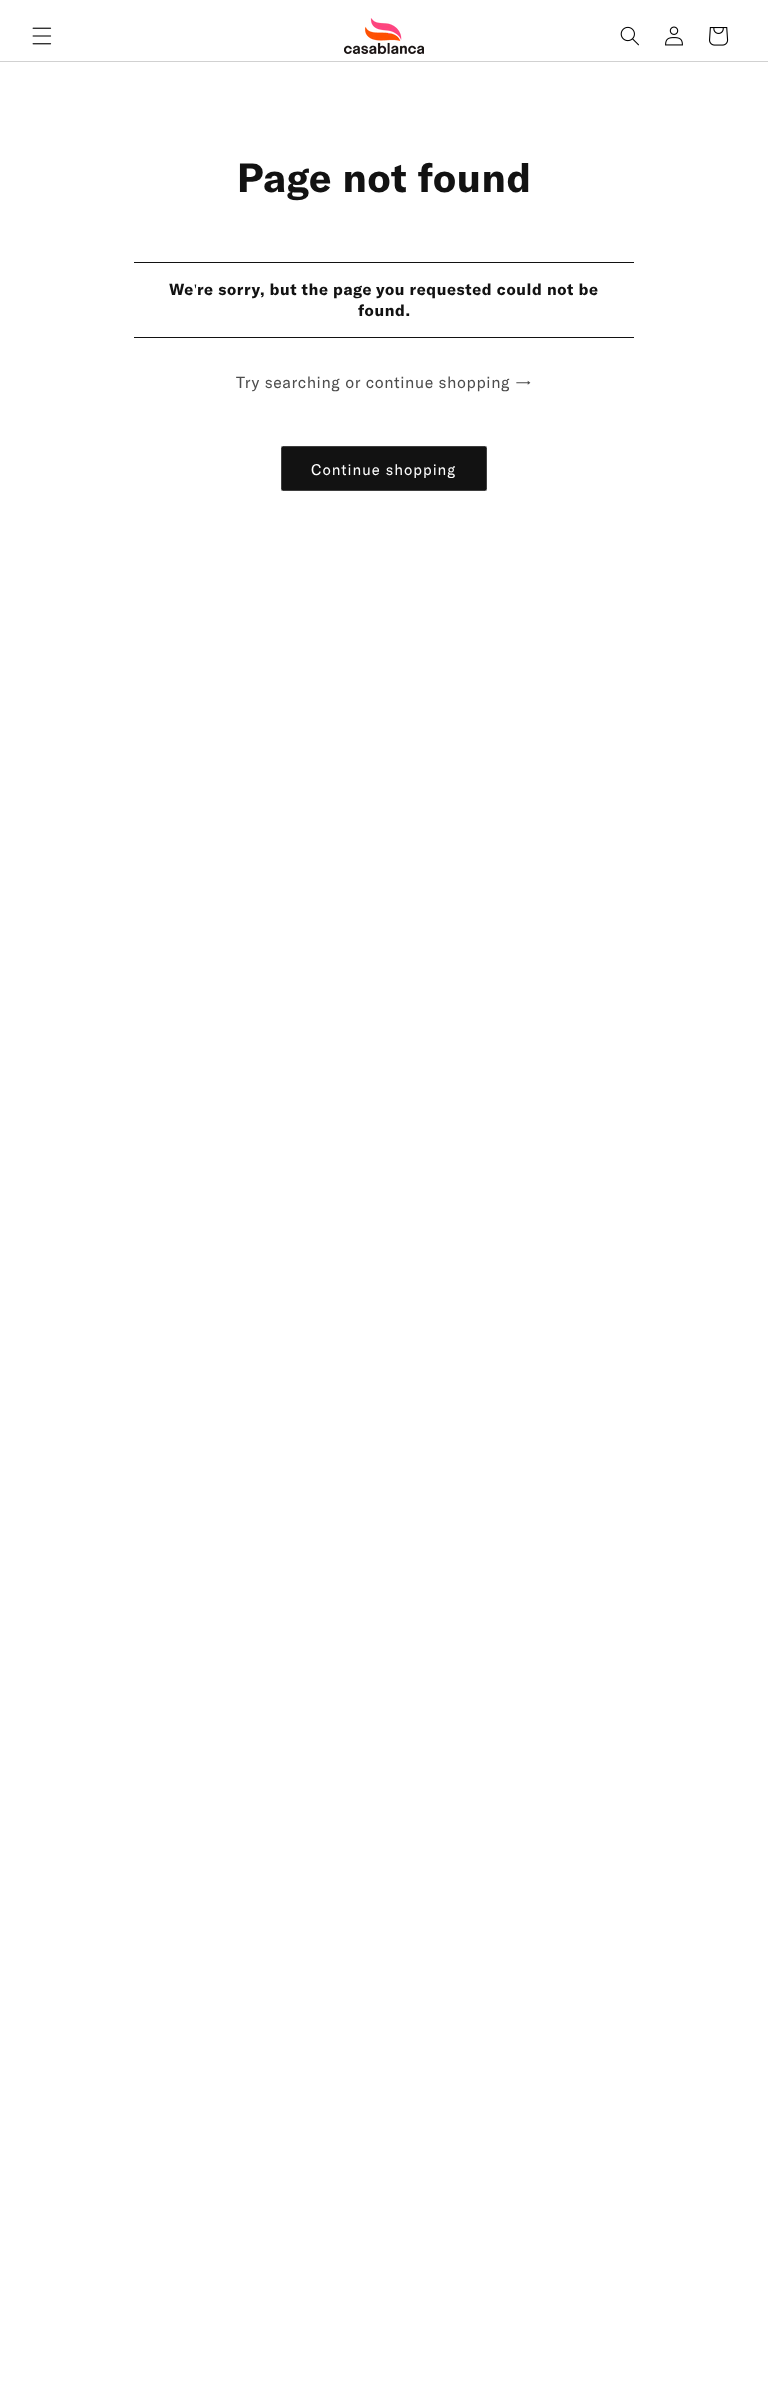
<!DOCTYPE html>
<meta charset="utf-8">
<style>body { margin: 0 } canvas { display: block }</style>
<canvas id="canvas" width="768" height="2401"></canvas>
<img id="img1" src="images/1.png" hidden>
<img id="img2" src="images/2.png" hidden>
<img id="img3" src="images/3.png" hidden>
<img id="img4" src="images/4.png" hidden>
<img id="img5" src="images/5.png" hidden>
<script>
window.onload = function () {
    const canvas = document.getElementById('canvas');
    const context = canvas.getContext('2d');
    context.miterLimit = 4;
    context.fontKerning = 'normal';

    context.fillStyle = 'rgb(255, 255, 255)';
    context.fillRect(0, 0, 768, 2401);
    context.fillStyle = 'rgb(209, 209, 209)';
    context.fillRect(0, 61, 768, 1);
    context.drawImage(document.getElementById('img1'), 32, 27, 20, 18);
    context.drawImage(document.getElementById('img2'), 344, 18, 80, 36);
    context.drawImage(document.getElementById('img3'), 620, 26, 19, 20);
    context.drawImage(document.getElementById('img4'), 665, 26, 18, 20);
    context.drawImage(document.getElementById('img5'), 709, 27, 20, 19);
    context.fillStyle = 'rgb(18, 18, 18)';
    context.fillRect(134, 262, 500, 1);
    context.fillRect(134, 337, 500, 1);
    context.beginPath();
    context.roundRect(281, 446, 206, 45, 2);
    context.fill();
    context.beginPath();
    context.roundRect(281.15, 446.15, 205.7, 44.7, 2.35);
    context.strokeStyle = 'rgb(255, 255, 255)';
    context.lineWidth = 0.3;
    context.stroke();
    context.letterSpacing = '0.6px';
    context.font = 'bold 40px GT America';
    context.fillText('Page not found', 237, 192);
    context.font = 'bold 16px GT America';
    context.fillText('We', 169, 295);
    context.font = '16px Liberation Serif';
    context.fillText('\'', 194, 295);
    context.font = 'bold 16px GT America';
    context.fillText('re sorry, but the page you requested could not be', 197, 295);
    context.fillText('found.', 358, 316);
    context.font = '16px GT America';
    context.fillStyle = 'rgb(77, 77, 77)';
    context.fillText('Try searching or continue shopping →', 236, 388);
    context.letterSpacing = '1px';
    context.font = '15px GT America';
    context.fillStyle = 'rgb(255, 255, 255)';
    context.fillText('Continue shopping', 311, 475);
};
</script>
